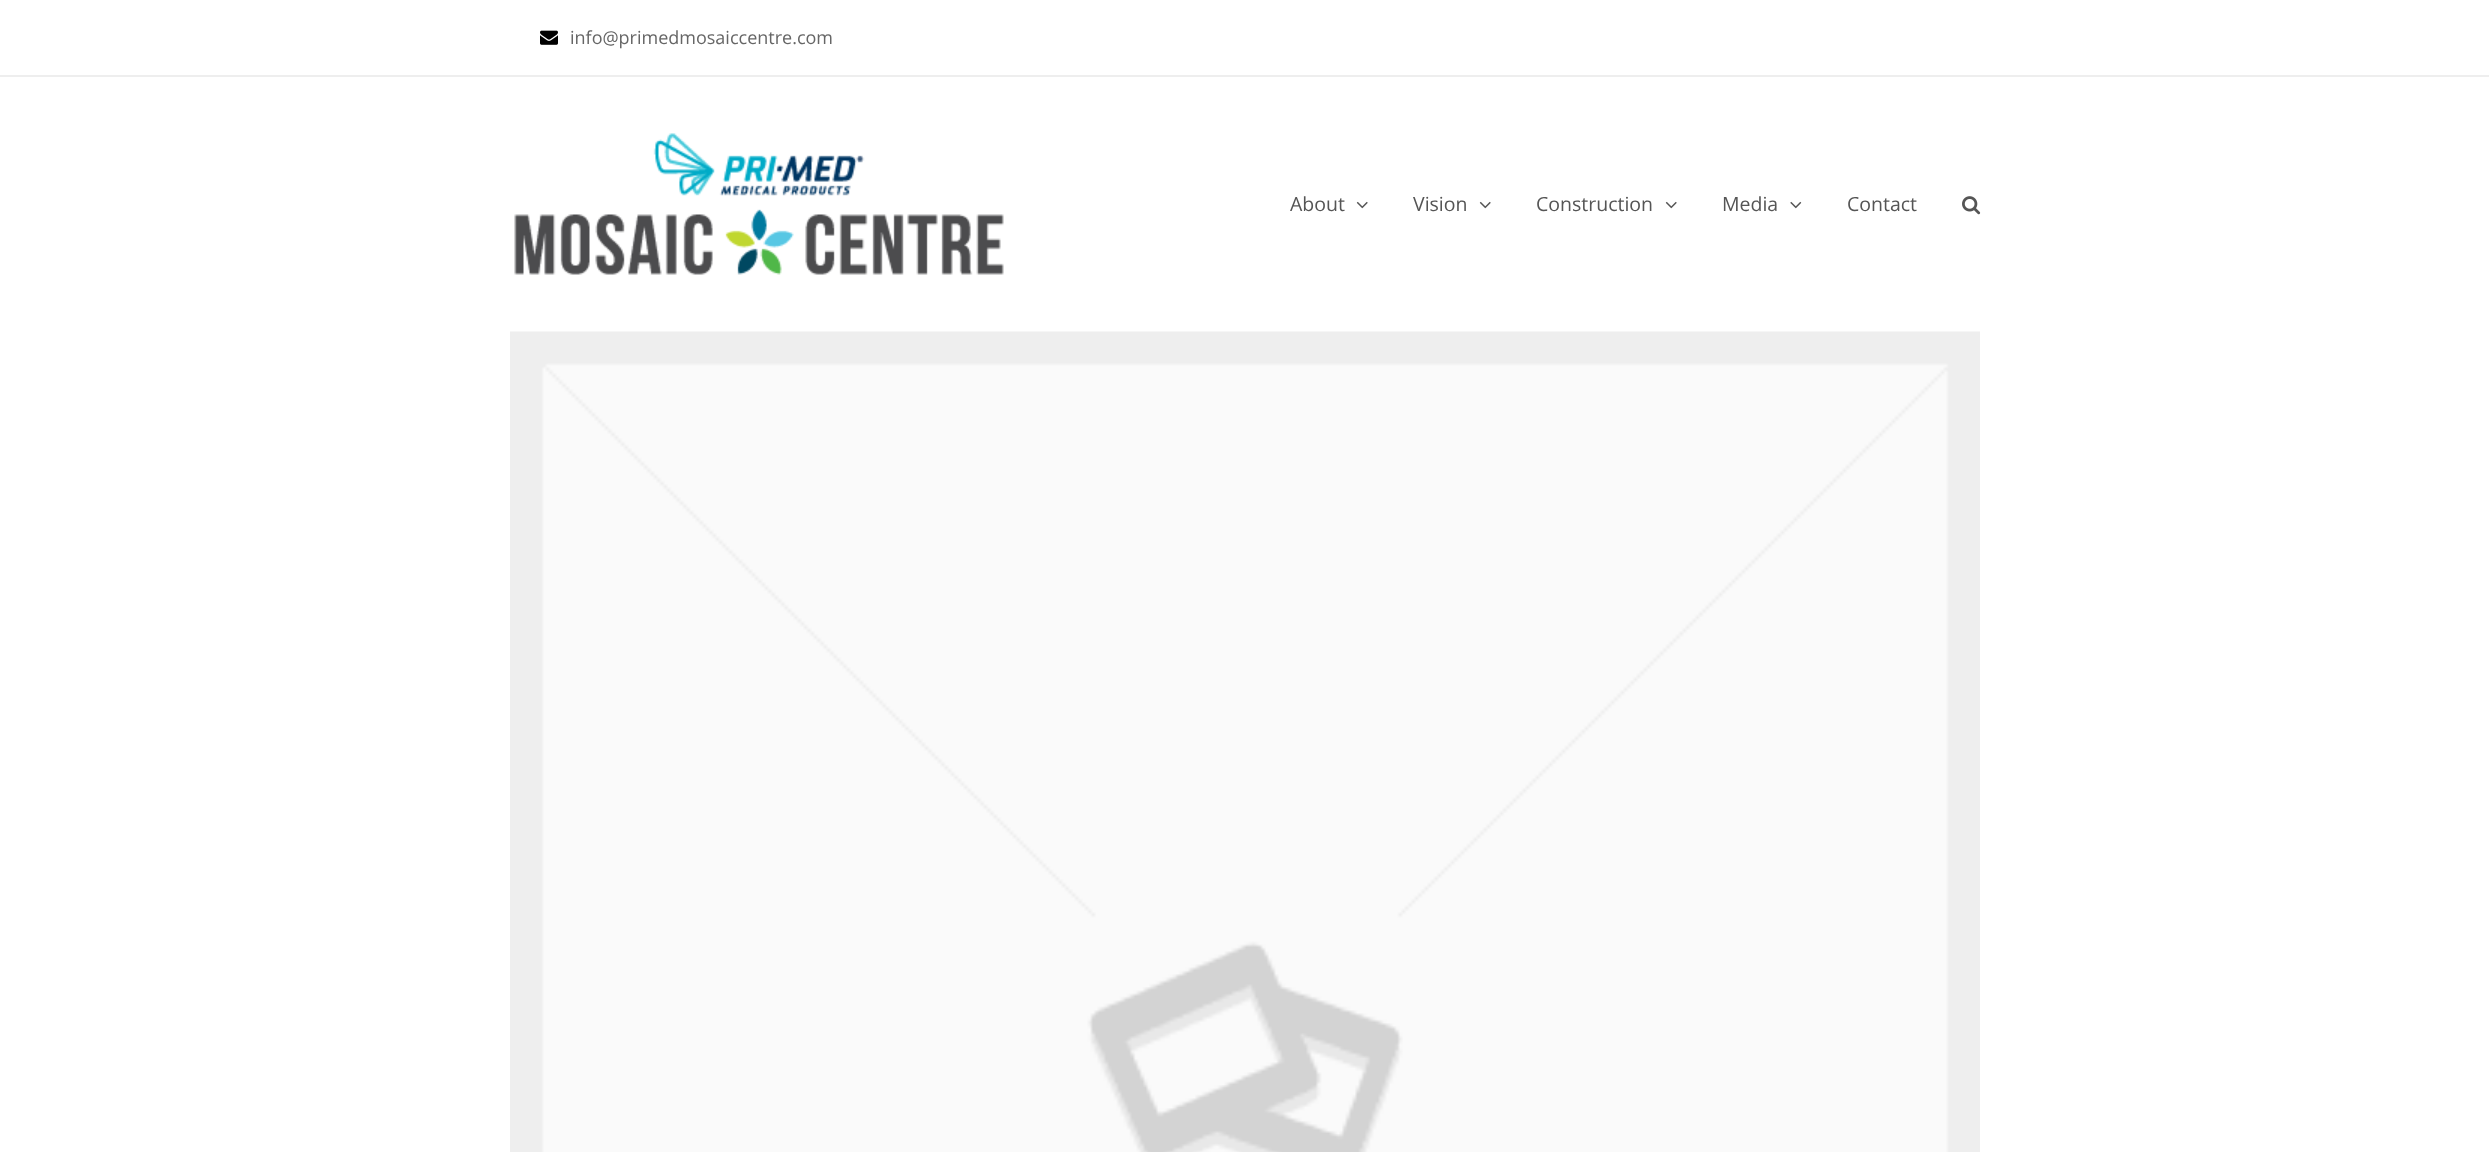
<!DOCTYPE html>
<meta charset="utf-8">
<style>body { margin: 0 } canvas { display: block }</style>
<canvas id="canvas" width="2489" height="1152"></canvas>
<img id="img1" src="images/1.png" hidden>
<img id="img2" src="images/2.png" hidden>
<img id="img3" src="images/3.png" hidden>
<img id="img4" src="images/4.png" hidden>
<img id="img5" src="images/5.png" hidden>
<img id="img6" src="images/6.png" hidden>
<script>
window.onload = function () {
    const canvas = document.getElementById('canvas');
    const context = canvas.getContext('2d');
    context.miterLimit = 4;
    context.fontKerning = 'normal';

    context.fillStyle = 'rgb(255, 255, 255)';
    context.fillRect(0, 0, 2489, 1152);
    context.fillStyle = 'rgb(238, 238, 238)';
    context.fillRect(0, 75, 2489, 2);
    context.drawImage(document.getElementById('img1'), 540, 30, 18, 15);
    context.drawImage(document.getElementById('img2'), 514, 133, 490, 142);
    context.drawImage(document.getElementById('img3'), 1356, 201, 12, 8);
    context.drawImage(document.getElementById('img3'), 1479, 201, 12, 8);
    context.drawImage(document.getElementById('img3'), 1665, 201, 12, 8);
    context.drawImage(document.getElementById('img4'), 1790, 201, 12, 8);
    context.drawImage(document.getElementById('img5'), 1962, 196, 19, 19);
    context.drawImage(document.getElementById('img6'), 510, 331, 1470, 821);
    context.font = '18px Open Sans';
    context.fillStyle = 'rgb(102, 102, 102)';
    context.fillText('info@primedmosaiccentre.com', 570, 44);
    context.font = '19.5px Open Sans';
    context.fillStyle = 'rgb(85, 85, 85)';
    context.fillText('About', 1290, 211);
    context.fillText('Vision', 1413, 211);
    context.fillText('Construction', 1536, 211);
    context.fillText('Media', 1722, 211);
    context.fillText('Contact', 1847, 211);
};
</script>
